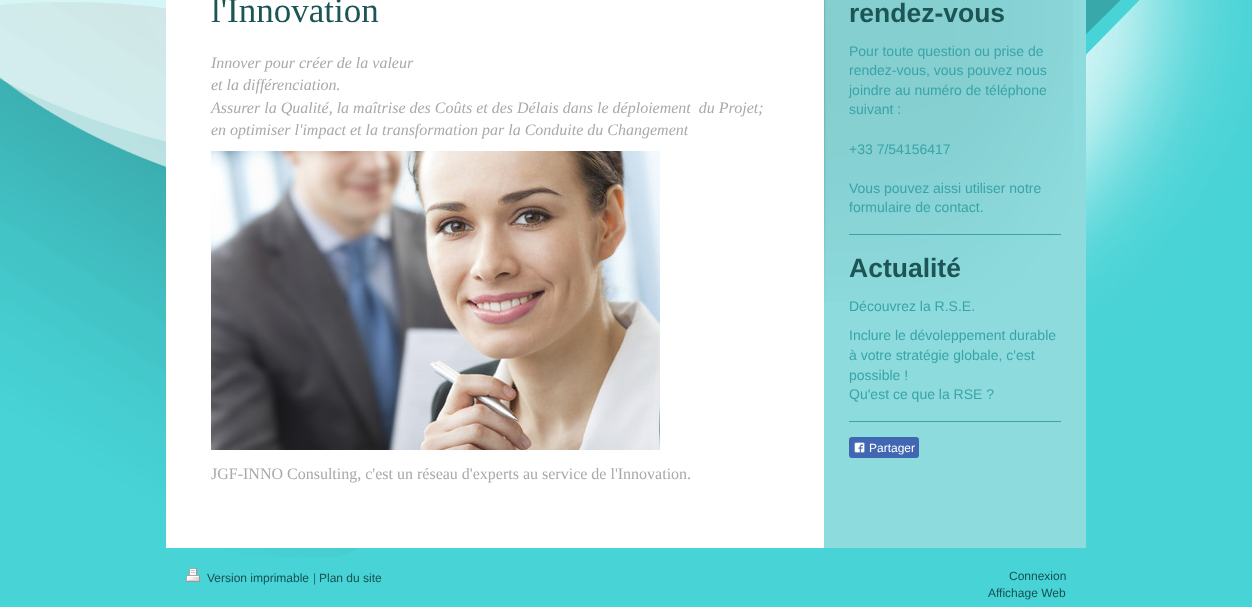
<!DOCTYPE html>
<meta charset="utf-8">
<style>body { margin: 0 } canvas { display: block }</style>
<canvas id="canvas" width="1252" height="607"></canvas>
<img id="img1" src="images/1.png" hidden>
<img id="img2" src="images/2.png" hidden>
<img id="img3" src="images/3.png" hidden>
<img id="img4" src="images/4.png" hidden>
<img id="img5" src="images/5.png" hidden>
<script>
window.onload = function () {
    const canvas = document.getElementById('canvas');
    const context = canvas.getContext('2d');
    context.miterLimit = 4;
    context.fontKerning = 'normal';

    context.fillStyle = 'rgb(72, 211, 214)';
    context.fillRect(0, 0, 1252, 607);
    context.drawImage(document.getElementById('img1'), 0, 0, 1252, 557);
    context.fillStyle = 'rgb(255, 255, 255)';
    context.fillRect(166, 0, 658, 548);
    context.drawImage(document.getElementById('img2'), 211, 151, 449, 299);
    context.fillStyle = 'rgb(141, 219, 221)';
    context.fillRect(824, 0, 262, 548);
    context.drawImage(document.getElementById('img3'), 824, 0, 249, 302);
    context.fillStyle = 'rgb(57, 164, 167)';
    context.fillRect(849, 234, 212, 1);
    context.fillRect(849, 421, 212, 1);
    context.fillStyle = 'rgb(66, 103, 178)';
    context.beginPath();
    context.roundRect(849, 437, 70, 21, 3);
    context.fill();
    context.drawImage(document.getElementById('img4'), 854, 442, 11, 11);
    context.drawImage(document.getElementById('img5'), 186, 568, 14, 14);
    context.font = '35px Liberation Serif';
    context.fillStyle = 'rgb(29, 85, 86)';
    context.fillText('l\'Innovation', 211, 22);
    context.font = 'italic 16px Liberation Serif';
    context.fillStyle = 'rgb(169, 169, 169)';
    context.fillText('Innover pour créer de la valeur', 211, 68);
    context.fillText('et la différenciation.', 211, 90);
    context.fillText('Assurer la Qualité, la maîtrise des Coûts et des Délais dans le déploiement  du Projet;', 211, 113);
    context.fillText('en optimiser l\'impact et la transformation par la Conduite du Changement', 211, 135);
    context.font = '16px Liberation Serif';
    context.fillText('JGF-INNO Consulting, c\'est un réseau d\'experts au service de l\'Innovation.', 211, 479);
    context.font = 'bold 26.5px Liberation Sans';
    context.fillStyle = 'rgb(29, 85, 86)';
    context.fillText('rendez-vous', 849, 22);
    context.font = '14px Liberation Sans';
    context.fillStyle = 'rgb(57, 164, 167)';
    context.fillText('Pour toute question ou prise de', 849, 56);
    context.fillText('rendez-vous, vous pouvez nous', 849, 75);
    context.fillText('joindre au numéro de téléphone', 849, 95);
    context.fillText('suivant :', 849, 114);
    context.fillText('+33 7/54156417', 849, 154);
    context.fillText('Vous pouvez aissi utiliser notre', 849, 193);
    context.fillText('formulaire de contact.', 849, 212);
    context.font = 'bold 26.5px Liberation Sans';
    context.fillStyle = 'rgb(29, 85, 86)';
    context.fillText('Actualité', 849, 277);
    context.font = '14px Liberation Sans';
    context.fillStyle = 'rgb(57, 164, 167)';
    context.fillText('Découvrez la R.S.E.', 849, 311);
    context.fillText('Inclure le dévoleppement durable', 849, 340);
    context.fillText('à votre stratégie globale, c\'est', 849, 360);
    context.fillText('possible !', 849, 380);
    context.fillText('Qu\'est ce que la RSE ?', 849, 399);
    context.font = '12px Liberation Sans';
    context.fillStyle = 'rgb(255, 255, 255)';
    context.fillText('Partager', 869, 452);
    context.fillStyle = 'rgb(21, 80, 82)';
    context.fillText('Version imprimable', 207, 582);
    context.fillStyle = 'rgb(29, 117, 119)';
    context.fillText('|', 313, 582);
    context.fillStyle = 'rgb(21, 80, 82)';
    context.fillText('Plan du site', 319, 582);
    context.fillText('Connexion', 1009, 580);
    context.fillText('Affichage Web', 988, 597);
};
</script>
